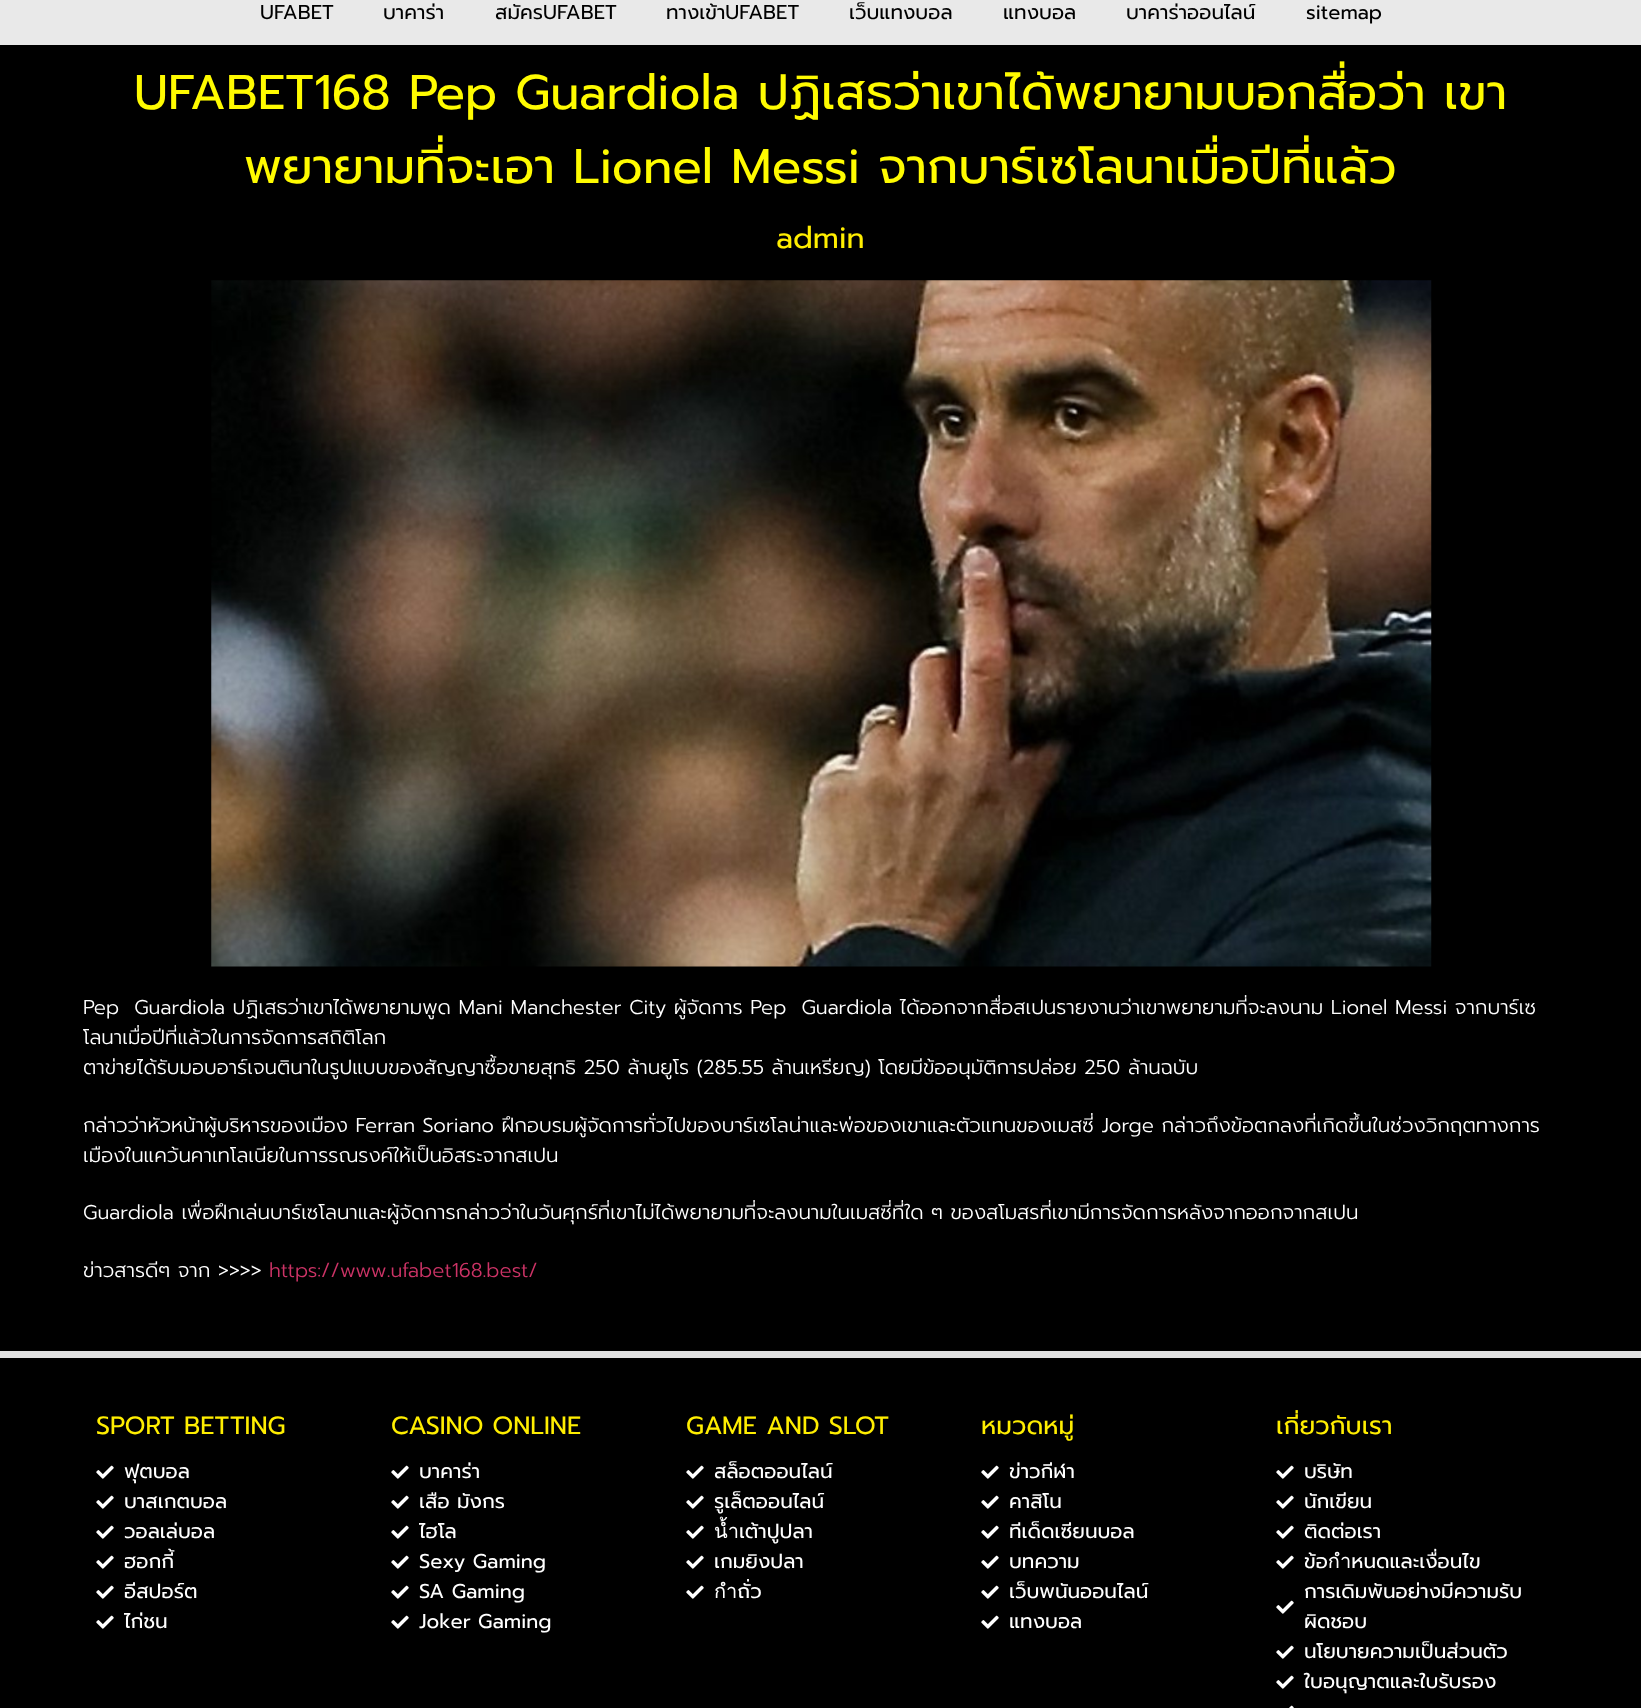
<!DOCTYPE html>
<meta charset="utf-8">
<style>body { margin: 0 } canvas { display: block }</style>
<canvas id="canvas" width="1641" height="1708"></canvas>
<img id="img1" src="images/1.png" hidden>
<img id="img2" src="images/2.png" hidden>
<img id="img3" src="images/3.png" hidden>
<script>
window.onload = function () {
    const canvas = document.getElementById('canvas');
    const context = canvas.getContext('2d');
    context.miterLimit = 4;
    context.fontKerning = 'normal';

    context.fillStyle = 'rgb(0, 0, 0)';
    context.fillRect(0, 0, 1641, 1708);
    context.fillStyle = 'rgb(233, 233, 233)';
    context.fillRect(0, 0, 1641, 45);
    context.drawImage(document.getElementById('img1'), 211, 280, 1221, 687);
    context.fillStyle = 'rgb(225, 225, 225)';
    context.fillRect(0, 1351, 1641, 7);
    context.drawImage(document.getElementById('img2'), 96, 1465, 18, 14);
    context.drawImage(document.getElementById('img2'), 96, 1495, 18, 14);
    context.drawImage(document.getElementById('img2'), 96, 1525, 18, 14);
    context.drawImage(document.getElementById('img2'), 96, 1555, 18, 14);
    context.drawImage(document.getElementById('img2'), 96, 1585, 18, 14);
    context.drawImage(document.getElementById('img2'), 96, 1615, 18, 14);
    context.drawImage(document.getElementById('img2'), 391, 1465, 18, 14);
    context.drawImage(document.getElementById('img2'), 391, 1495, 18, 14);
    context.drawImage(document.getElementById('img2'), 391, 1525, 18, 14);
    context.drawImage(document.getElementById('img2'), 391, 1555, 18, 14);
    context.drawImage(document.getElementById('img2'), 391, 1585, 18, 14);
    context.drawImage(document.getElementById('img2'), 391, 1615, 18, 14);
    context.drawImage(document.getElementById('img2'), 686, 1465, 18, 14);
    context.drawImage(document.getElementById('img2'), 686, 1495, 18, 14);
    context.drawImage(document.getElementById('img2'), 686, 1525, 18, 14);
    context.drawImage(document.getElementById('img2'), 686, 1555, 18, 14);
    context.drawImage(document.getElementById('img2'), 686, 1585, 18, 14);
    context.drawImage(document.getElementById('img2'), 981, 1465, 18, 14);
    context.drawImage(document.getElementById('img2'), 981, 1495, 18, 14);
    context.drawImage(document.getElementById('img2'), 981, 1525, 18, 14);
    context.drawImage(document.getElementById('img2'), 981, 1555, 18, 14);
    context.drawImage(document.getElementById('img2'), 981, 1585, 18, 14);
    context.drawImage(document.getElementById('img2'), 981, 1615, 18, 14);
    context.drawImage(document.getElementById('img2'), 1276, 1465, 18, 14);
    context.drawImage(document.getElementById('img2'), 1276, 1495, 18, 14);
    context.drawImage(document.getElementById('img2'), 1276, 1525, 18, 14);
    context.drawImage(document.getElementById('img2'), 1276, 1555, 18, 14);
    context.drawImage(document.getElementById('img2'), 1276, 1600, 18, 14);
    context.drawImage(document.getElementById('img2'), 1276, 1645, 18, 14);
    context.drawImage(document.getElementById('img2'), 1276, 1675, 18, 14);
    context.drawImage(document.getElementById('img3'), 1289, 1705, 5, 3);
    context.font = '20px Prompt';
    context.fillStyle = 'rgb(0, 0, 0)';
    context.fillText('UFABET', 260, 19);
    context.fillText('บาคาร่า', 383, 19);
    context.fillText('สมัครUFABET', 495, 19);
    context.fillText('ทางเข้าUFABET', 666, 19);
    context.fillText('เว็บแทงบอล', 849, 19);
    context.fillText('แทงบอล', 1003, 19);
    context.fillText('บาคาร่าออนไลน์', 1126, 19);
    context.fillText('sitemap', 1306, 19);
    context.font = '48.75px Prompt';
    context.fillStyle = 'rgb(255, 251, 0)';
    context.fillText('UFABET168 Pep Guardiola ปฏิเสธว่าเขาได้พยายามบอกสื่อว่า เขา', 134, 109);
    context.fillText('พยายามที่จะเอา Lionel Messi จากบาร์เซโลนาเมื่อปีที่แล้ว', 244, 183);
    context.font = '30px Prompt';
    context.fillStyle = 'rgb(255, 238, 0)';
    context.fillText('admin', 776, 248);
    context.font = '300 20px Prompt';
    context.fillStyle = 'rgb(255, 255, 255)';
    context.fillText('Pep  Guardiola ปฏิเสธว่าเขาได้พยายามพูด Mani Manchester City ผู้จัดการ Pep  Guardiola ได้ออกจากสื่อสเปนรายงานว่าเขาพยายามที่จะลงนาม Lionel Messi จากบาร์เซ', 83, 1014);
    context.fillText('โลนาเมื่อปีที่แล้วในการจัดการสถิติโลก', 83, 1044);
    context.fillText('ตาข่ายได้รับมอบอาร์เจนตินาในรูปแบบของสัญญาซื้อขายสุทธิ 250 ล้านยูโร (285.55 ล้านเหรียญ) โดยมีข้ออนุมัติการปล่อย 250 ล้านฉบับ', 83, 1074);
    context.fillText('กล่าวว่าหัวหน้าผู้บริหารของเมือง Ferran Soriano ฝึกอบรมผู้จัดการทั่วไปของบาร์เซโลน่าและพ่อของเขาและตัวแทนของเมสซี่ Jorge กล่าวถึงข้อตกลงที่เกิดขึ้นในช่วงวิกฤตทางการ', 83, 1132);
    context.fillText('เมืองในแคว้นคาเทโลเนียในการรณรงค์ให้เป็นอิสระจากสเปน', 83, 1162);
    context.fillText('Guardiola เพื่อฝึกเล่นบาร์เซโลนาและผู้จัดการกล่าวว่าในวันศุกร์ที่เขาไม่ได้พยายามที่จะลงนามในเมสซี่ที่ใด ๆ ของสโมสรที่เขามีการจัดการหลังจากออกจากสเปน', 83, 1219);
    context.fillText('ข่าวสารดีๆ จาก >>>>', 83, 1277);
    context.fillStyle = 'rgb(204, 51, 102)';
    context.fillText('https://www.ufabet168.best/', 269, 1277);
    context.font = '25px Prompt';
    context.fillStyle = 'rgb(255, 238, 0)';
    context.fillText('SPORT BETTING', 96, 1434);
    context.font = '20px Prompt';
    context.fillStyle = 'rgb(255, 255, 255)';
    context.fillText('ฟุตบอล', 124, 1478);
    context.fillText('บาสเกตบอล', 124, 1508);
    context.fillText('วอลเล่บอล', 124, 1538);
    context.fillText('ฮอกกี้', 124, 1568);
    context.fillText('อีสปอร์ต', 124, 1598);
    context.fillText('ไก่ชน', 124, 1628);
    context.font = '25px Prompt';
    context.fillStyle = 'rgb(255, 238, 0)';
    context.fillText('CASINO ONLINE', 391, 1434);
    context.font = '20px Prompt';
    context.fillStyle = 'rgb(255, 255, 255)';
    context.fillText('บาคาร่า', 419, 1478);
    context.fillText('เสือ มังกร', 419, 1508);
    context.fillText('ไฮโล', 419, 1538);
    context.fillText('Sexy Gaming', 419, 1568);
    context.fillText('SA Gaming', 419, 1598);
    context.fillText('Joker Gaming', 419, 1628);
    context.font = '25px Prompt';
    context.fillStyle = 'rgb(255, 238, 0)';
    context.fillText('GAME AND SLOT', 686, 1434);
    context.font = '20px Prompt';
    context.fillStyle = 'rgb(255, 255, 255)';
    context.fillText('สล็อตออนไลน์', 714, 1478);
    context.fillText('รูเล็ตออนไลน์', 714, 1508);
    context.fillText('น้ำเต้าปูปลา', 714, 1538);
    context.fillText('เกมยิงปลา', 714, 1568);
    context.fillText('กำถั่ว', 714, 1598);
    context.font = '25px Prompt';
    context.fillStyle = 'rgb(255, 238, 0)';
    context.fillText('หมวดหมู่', 981, 1434);
    context.font = '20px Prompt';
    context.fillStyle = 'rgb(255, 255, 255)';
    context.fillText('ข่าวกีฬา', 1009, 1478);
    context.fillText('คาสิโน', 1009, 1508);
    context.fillText('ทีเด็ดเซียนบอล', 1009, 1538);
    context.fillText('บทความ', 1009, 1568);
    context.fillText('เว็บพนันออนไลน์', 1009, 1598);
    context.fillText('แทงบอล', 1009, 1628);
    context.font = '25px Prompt';
    context.fillStyle = 'rgb(255, 238, 0)';
    context.fillText('เกี่ยวกับเรา', 1276, 1434);
    context.font = '20px Prompt';
    context.fillStyle = 'rgb(255, 255, 255)';
    context.fillText('บริษัท', 1304, 1478);
    context.fillText('นักเขียน', 1304, 1508);
    context.fillText('ติดต่อเรา', 1304, 1538);
    context.fillText('ข้อกำหนดและเงื่อนไข', 1304, 1568);
    context.fillText('การเดิมพันอย่างมีความรับ', 1304, 1598);
    context.fillText('ผิดชอบ', 1304, 1628);
    context.fillText('นโยบายความเป็นส่วนตัว', 1304, 1658);
    context.fillText('ใบอนุญาตและใบรับรอง', 1304, 1688);
};
</script>
